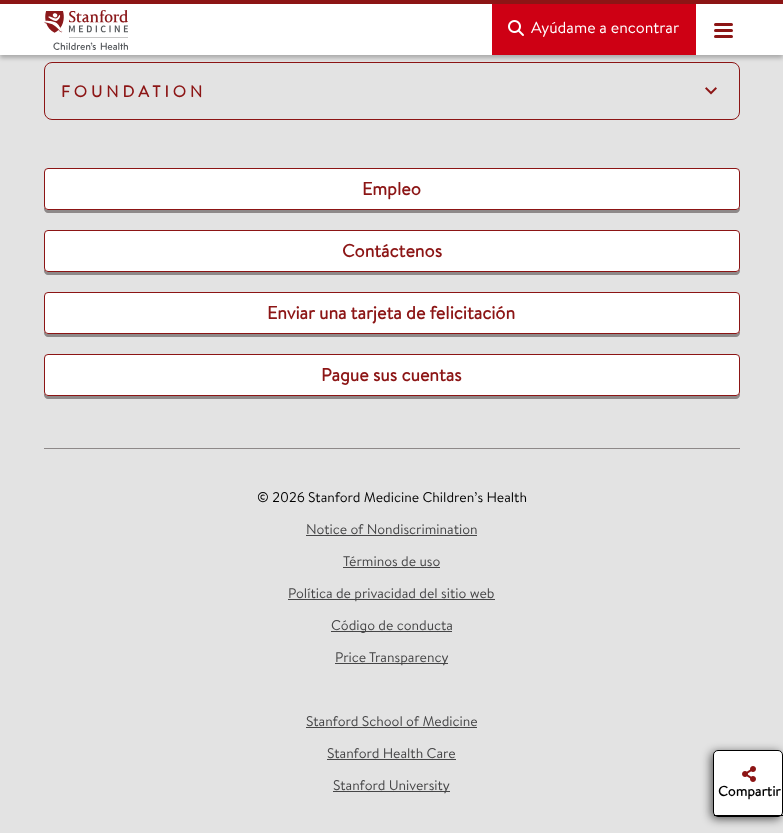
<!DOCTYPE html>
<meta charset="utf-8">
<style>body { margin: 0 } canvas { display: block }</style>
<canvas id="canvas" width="783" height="833"></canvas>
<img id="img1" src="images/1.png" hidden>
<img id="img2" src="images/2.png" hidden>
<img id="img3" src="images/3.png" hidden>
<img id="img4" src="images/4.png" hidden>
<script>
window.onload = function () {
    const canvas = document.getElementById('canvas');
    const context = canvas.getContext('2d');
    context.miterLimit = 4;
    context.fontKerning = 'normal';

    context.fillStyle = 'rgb(227, 227, 227)';
    context.fillRect(0, 0, 783, 833);
    context.beginPath();
    context.roundRect(44.5, 62.5, 695, 57, 7.5);
    context.strokeStyle = 'rgb(140, 21, 21)';
    context.stroke();
    context.fillStyle = 'rgba(0, 0, 0, 0.25)';
    context.filter = 'blur(2px)';
    context.beginPath();
    context.rect(0, 3, 783, 55);
    context.fill();
    context.filter = 'none';
    context.fillStyle = 'rgb(255, 255, 255)';
    context.fillRect(0, 4, 783, 51);
    context.fillStyle = 'rgb(140, 21, 21)';
    context.fillRect(0, 0, 783, 4);
    context.drawImage(document.getElementById('img1'), 44, 10, 84, 40);
    context.fillStyle = 'rgb(206, 0, 20)';
    context.fillRect(492, 4, 204, 51);
    context.drawImage(document.getElementById('img2'), 508, 20, 16, 16);
    context.fillStyle = 'rgb(140, 21, 21)';
    context.beginPath();
    context.roundRect(714, 23, 19, 3, 1.5);
    context.fill();
    context.beginPath();
    context.roundRect(714, 29, 19, 3, 1.5);
    context.fill();
    context.beginPath();
    context.roundRect(714, 35, 19, 3, 1.5);
    context.fill();
    context.drawImage(document.getElementById('img3'), 705, 87, 12, 8);
    context.fillStyle = 'rgb(142, 137, 137)';
    context.beginPath();
    context.moveTo(44, 206);
    context.lineTo(44, 209);
    context.bezierCurveTo(44, 211, 46, 213, 48, 213);
    context.lineTo(736, 213);
    context.bezierCurveTo(738, 213, 740, 211, 740, 209);
    context.lineTo(740, 206);
    context.bezierCurveTo(740, 208, 738, 210, 736, 210);
    context.lineTo(48, 210);
    context.bezierCurveTo(46, 210, 44, 208, 44, 206);
    context.closePath();
    context.fill();
    context.fillStyle = 'rgb(255, 255, 255)';
    context.beginPath();
    context.roundRect(44.5, 168.5, 695, 41, 3.5);
    context.fill();
    context.stroke();
    context.fillStyle = 'rgb(142, 137, 137)';
    context.beginPath();
    context.moveTo(44, 268);
    context.lineTo(44, 271);
    context.bezierCurveTo(44, 273, 46, 275, 48, 275);
    context.lineTo(736, 275);
    context.bezierCurveTo(738, 275, 740, 273, 740, 271);
    context.lineTo(740, 268);
    context.bezierCurveTo(740, 270, 738, 272, 736, 272);
    context.lineTo(48, 272);
    context.bezierCurveTo(46, 272, 44, 270, 44, 268);
    context.closePath();
    context.fill();
    context.fillStyle = 'rgb(255, 255, 255)';
    context.beginPath();
    context.roundRect(44.5, 230.5, 695, 41, 3.5);
    context.fill();
    context.stroke();
    context.fillStyle = 'rgb(142, 137, 137)';
    context.beginPath();
    context.moveTo(44, 330);
    context.lineTo(44, 333);
    context.bezierCurveTo(44, 335, 46, 337, 48, 337);
    context.lineTo(736, 337);
    context.bezierCurveTo(738, 337, 740, 335, 740, 333);
    context.lineTo(740, 330);
    context.bezierCurveTo(740, 332, 738, 334, 736, 334);
    context.lineTo(48, 334);
    context.bezierCurveTo(46, 334, 44, 332, 44, 330);
    context.closePath();
    context.fill();
    context.fillStyle = 'rgb(255, 255, 255)';
    context.beginPath();
    context.roundRect(44.5, 292.5, 695, 41, 3.5);
    context.fill();
    context.stroke();
    context.fillStyle = 'rgb(142, 137, 137)';
    context.beginPath();
    context.moveTo(44, 392);
    context.lineTo(44, 395);
    context.bezierCurveTo(44, 397, 46, 399, 48, 399);
    context.lineTo(736, 399);
    context.bezierCurveTo(738, 399, 740, 397, 740, 395);
    context.lineTo(740, 392);
    context.bezierCurveTo(740, 394, 738, 396, 736, 396);
    context.lineTo(48, 396);
    context.bezierCurveTo(46, 396, 44, 394, 44, 392);
    context.closePath();
    context.fill();
    context.fillStyle = 'rgb(255, 255, 255)';
    context.beginPath();
    context.roundRect(44.5, 354.5, 695, 41, 3.5);
    context.fill();
    context.stroke();
    context.fillStyle = 'rgb(142, 137, 137)';
    context.fillRect(44, 448, 696, 1);
    context.fillStyle = 'rgb(70, 70, 71)';
    context.fillRect(306, 535, 171, 1);
    context.fillRect(343, 567, 97, 1);
    context.fillRect(288, 599, 207, 1);
    context.fillRect(331, 631, 121, 1);
    context.fillRect(335, 663, 113, 1);
    context.fillRect(306, 727, 171, 1);
    context.fillRect(327, 759, 129, 1);
    context.fillRect(333, 791, 117, 1);
    context.fillStyle = 'rgba(0, 0, 0, 0.63)';
    context.filter = 'blur(5px)';
    context.beginPath();
    context.roundRect(711, 752, 70, 67, 5);
    context.fill();
    context.filter = 'none';
    context.fillStyle = 'rgb(255, 255, 255)';
    context.beginPath();
    context.roundRect(713.5, 750.5, 69, 66, 4.5);
    context.fill();
    context.strokeStyle = 'rgb(0, 0, 0)';
    context.stroke();
    context.fillStyle = 'rgb(0, 0, 0)';
    context.fillRect(714, 815, 69, 1);
    context.drawImage(document.getElementById('img4'), 742, 766, 14, 16);
    context.font = '16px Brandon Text';
    context.fillStyle = 'rgb(255, 255, 255)';
    context.fillText('Ayúdame a encontrar', 531, 33);
    context.letterSpacing = '4px';
    context.font = 'bold 16px Brandon Text';
    context.fillStyle = 'rgb(140, 21, 21)';
    context.fillText('FOUNDATION', 61, 97);
    context.letterSpacing = '0px';
    context.font = 'bold 18px Brandon Text';
    context.fillText('Empleo', 362, 195);
    context.fillText('Contáctenos', 342, 257);
    context.fillText('Enviar una tarjeta de felicitación', 267, 319);
    context.fillText('Pague sus cuentas', 321, 381);
    context.font = '14px Brandon Text';
    context.fillStyle = 'rgb(0, 0, 0)';
    context.fillText('© 2026 Stanford Medicine Children’s Health', 257, 502);
    context.fillStyle = 'rgb(70, 70, 71)';
    context.fillText('Notice of Nondiscrimination', 306, 534);
    context.fillText('Términos de uso', 343, 566);
    context.fillText('Política de privacidad del sitio web', 288, 598);
    context.fillText('Código de conducta', 331, 630);
    context.fillText('Price Transparency', 335, 662);
    context.fillText('Stanford School of Medicine', 306, 726);
    context.fillText('Stanford Health Care', 327, 758);
    context.fillText('Stanford University', 333, 790);
    context.font = 'bold 14px Brandon Text';
    context.fillStyle = 'rgb(0, 0, 0)';
    context.fillText('Compartir', 718, 796);
};
</script>
